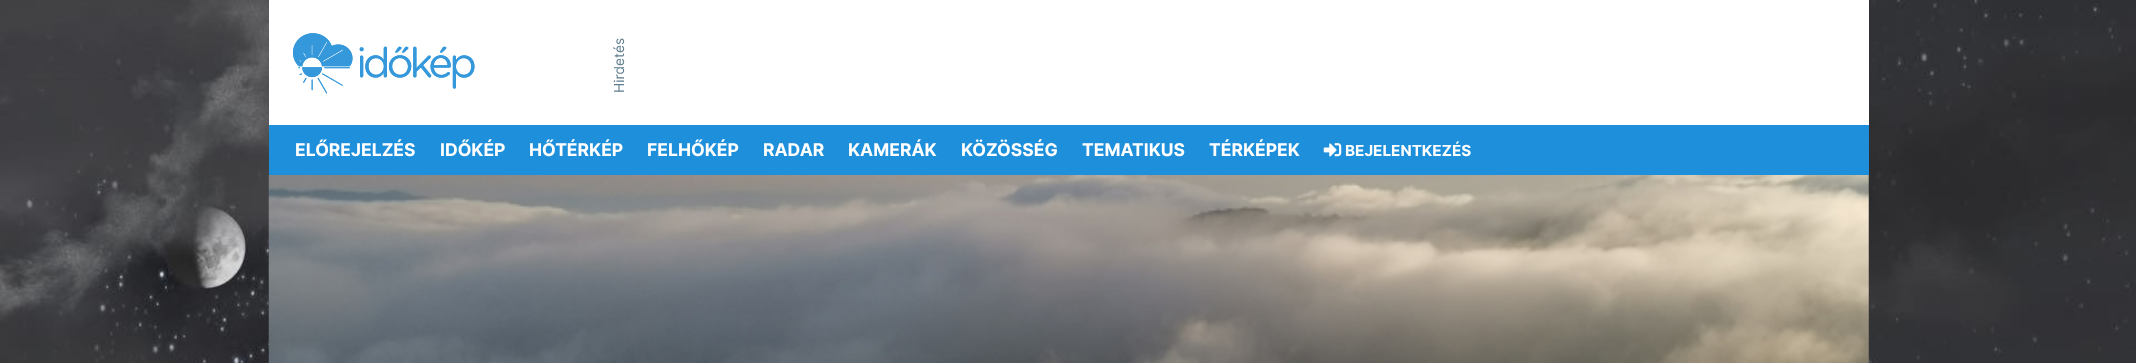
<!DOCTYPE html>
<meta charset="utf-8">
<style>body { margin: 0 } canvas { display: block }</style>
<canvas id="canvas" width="2136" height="363"></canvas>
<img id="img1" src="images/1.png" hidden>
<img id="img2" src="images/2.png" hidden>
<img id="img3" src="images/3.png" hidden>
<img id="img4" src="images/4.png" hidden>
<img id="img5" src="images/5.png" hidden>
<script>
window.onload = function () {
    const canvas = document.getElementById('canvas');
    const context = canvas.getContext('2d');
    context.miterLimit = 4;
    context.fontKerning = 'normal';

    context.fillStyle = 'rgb(255, 255, 255)';
    context.fillRect(0, 0, 2136, 363);
    context.drawImage(document.getElementById('img1'), 0, 0, 2136, 363);
    context.fillRect(269, 0, 1600, 125);
    context.drawImage(document.getElementById('img2'), 293, 33, 182, 61);
    context.drawImage(document.getElementById('img3'), 293, 33, 182, 61);
    context.fillStyle = 'rgb(30, 143, 219)';
    context.fillRect(269, 125, 1600, 50);
    context.drawImage(document.getElementById('img4'), 1323, 143, 19, 14);
    context.drawImage(document.getElementById('img5'), 268, 175, 1601, 188);
    context.font = '13.75px Inter';
    context.fillStyle = 'rgb(96, 125, 141)';
    context.save();
    context.translate(624, 93);
    context.rotate(-90 * Math.PI / 180);
    context.fillText('Hirdetés', 0, 0);
    context.restore();
    context.font = 'bold 17.5px Inter';
    context.fillStyle = 'rgb(255, 255, 255)';
    context.fillText('ELŐREJELZÉS', 295, 156);
    context.fillText('IDŐKÉP', 440, 156);
    context.fillText('HŐTÉRKÉP', 529, 156);
    context.fillText('FELHŐKÉP', 647, 156);
    context.fillText('RADAR', 763, 156);
    context.fillText('KAMERÁK', 848, 156);
    context.fillText('KÖZÖSSÉG', 961, 156);
    context.fillText('TEMATIKUS', 1082, 156);
    context.fillText('TÉRKÉPEK', 1209, 156);
    context.font = 'bold 15.25px Inter';
    context.fillText('BEJELENTKEZÉS', 1345, 156);
};
</script>
